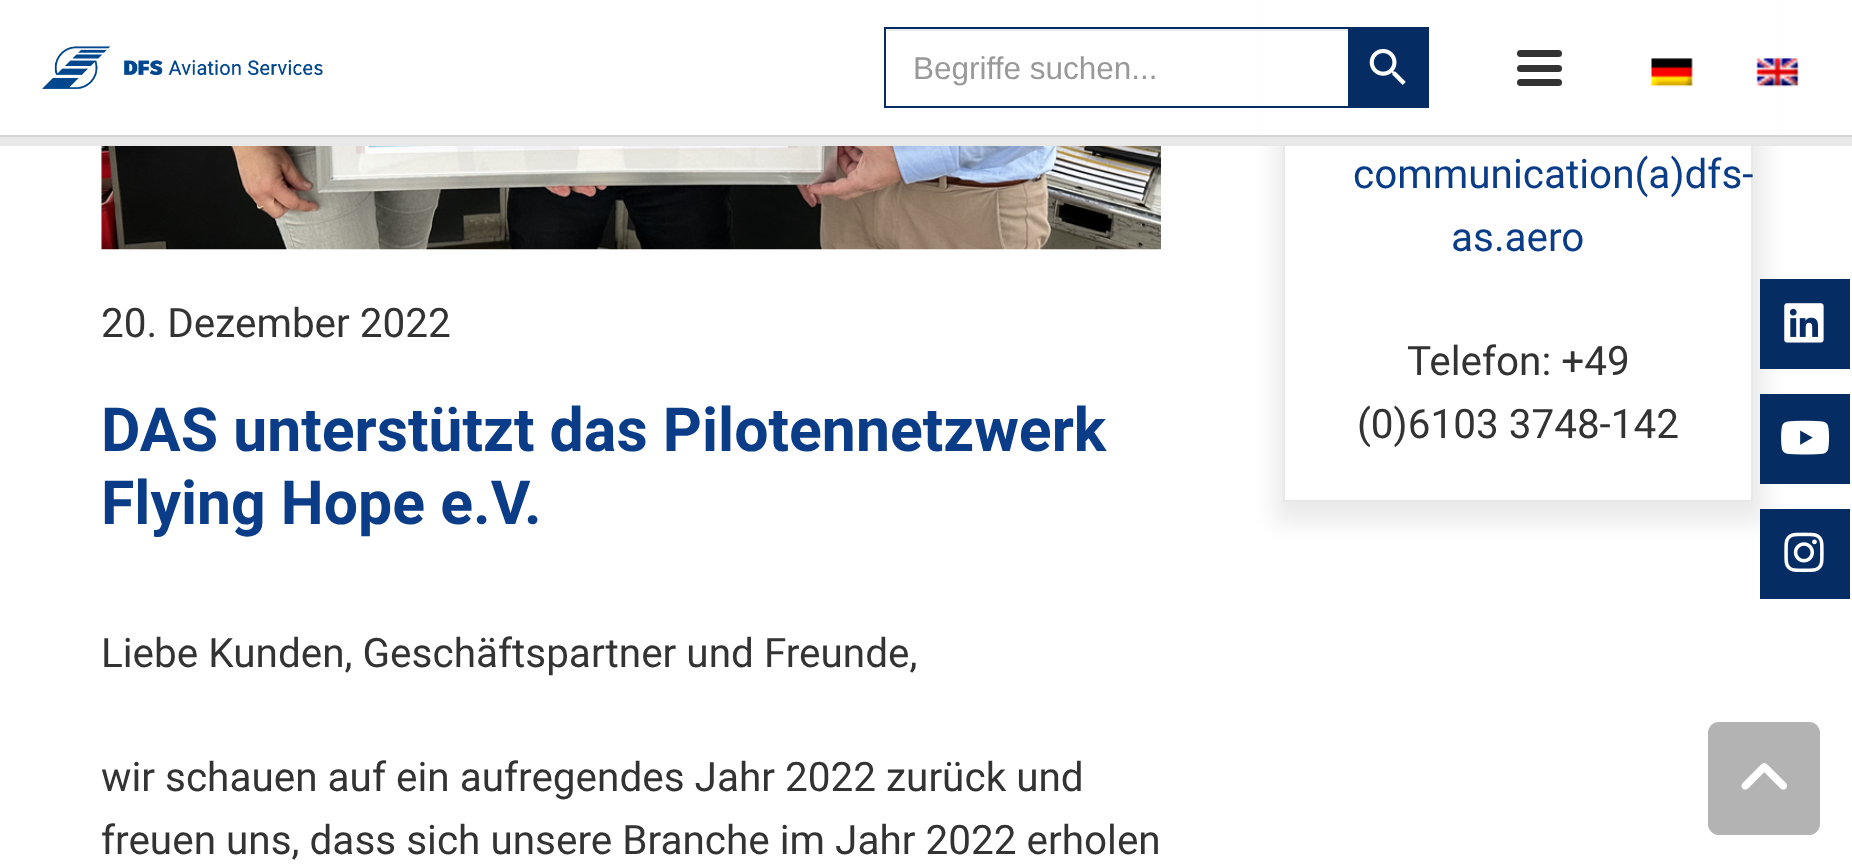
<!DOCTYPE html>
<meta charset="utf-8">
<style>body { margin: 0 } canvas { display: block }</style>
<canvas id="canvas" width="1852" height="868"></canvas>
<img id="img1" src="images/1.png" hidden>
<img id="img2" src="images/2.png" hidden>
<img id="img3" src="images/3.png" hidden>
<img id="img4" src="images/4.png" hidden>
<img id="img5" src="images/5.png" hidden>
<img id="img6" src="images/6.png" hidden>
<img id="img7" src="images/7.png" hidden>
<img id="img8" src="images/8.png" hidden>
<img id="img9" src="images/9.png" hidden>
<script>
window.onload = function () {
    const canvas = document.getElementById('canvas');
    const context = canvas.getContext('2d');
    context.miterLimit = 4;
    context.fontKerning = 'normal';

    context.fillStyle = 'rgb(255, 255, 255)';
    context.fillRect(0, 0, 1852, 868);
    context.fillStyle = 'rgba(0, 0, 0, 0.08)';
    context.filter = 'blur(11px)';
    context.beginPath();
    context.rect(1274, -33, 492, 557);
    context.fill();
    context.filter = 'none';
    context.fillStyle = 'rgb(255, 255, 255)';
    context.fillRect(1285, 146, 466, 354);
    context.strokeStyle = 'rgb(232, 232, 232)';
    context.lineWidth = 2;
    context.strokeRect(1284, -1, 468, 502);
    context.fillStyle = 'rgb(232, 232, 232)';
    context.fillRect(0, 137, 1852, 9);
    context.fillStyle = 'rgb(213, 213, 213)';
    context.fillRect(0, 135, 1852, 2);
    context.fillStyle = 'rgb(255, 255, 255)';
    context.fillRect(1261, 0, 518, 135);
    context.drawImage(document.getElementById('img1'), 42, 46, 281, 43);
    context.fillStyle = 'rgb(235, 235, 235)';
    context.fillRect(887, 29, 461, 2);
    context.fillStyle = 'rgb(6, 44, 100)';
    context.fillRect(884, 27, 464, 2);
    context.fillRect(884, 106, 464, 2);
    context.fillRect(884, 27, 2, 81);
    context.fillRect(1348, 27, 81, 81);
    context.drawImage(document.getElementById('img2'), 1369, 48, 37, 37);
    context.fillStyle = 'rgb(51, 51, 51)';
    context.beginPath();
    context.roundRect(1517, 65, 45, 7, 3.5);
    context.fill();
    context.beginPath();
    context.roundRect(1517, 50, 45, 7, 3.5);
    context.fill();
    context.beginPath();
    context.roundRect(1517, 79, 45, 7, 3.5);
    context.fill();
    context.drawImage(document.getElementById('img3'), 1651, 58, 42, 29);
    context.drawImage(document.getElementById('img4'), 1756, 58, 43, 29);
    context.drawImage(document.getElementById('img5'), 101, 146, 1060, 104);
    context.fillStyle = 'rgb(6, 44, 100)';
    context.fillRect(1760, 279, 90, 90);
    context.drawImage(document.getElementById('img6'), 1784, 303, 40, 40);
    context.fillRect(1760, 394, 90, 90);
    context.drawImage(document.getElementById('img7'), 1781, 420, 49, 35);
    context.fillRect(1760, 509, 90, 90);
    context.drawImage(document.getElementById('img8'), 1784, 532, 40, 41);
    context.fillStyle = 'rgb(179, 179, 179)';
    context.beginPath();
    context.roundRect(1708, 722, 112, 113, 11);
    context.fill();
    context.drawImage(document.getElementById('img9'), 1741, 763, 46, 27);
    context.font = '31.5px Liberation Sans';
    context.fillStyle = 'rgb(153, 153, 153)';
    context.fillText('Begriffe suchen...', 913, 79);
    context.font = '40.5px Roboto';
    context.fillStyle = 'rgb(51, 51, 51)';
    context.fillText('20. Dezember 2022', 101, 337);
    context.font = 'bold 60.75px Roboto';
    context.fillStyle = 'rgb(10, 60, 135)';
    context.fillText('DAS unterstützt das Pilotennetzwerk', 101, 451);
    context.fillText('Flying Hope e.V.', 101, 524);
    context.font = '40.5px Roboto';
    context.fillStyle = 'rgb(51, 51, 51)';
    context.fillText('Liebe Kunden, Geschäftspartner und Freunde,', 101, 667);
    context.fillText('wir schauen auf ein aufregendes Jahr 2022 zurück und', 101, 791);
    context.fillText('freuen uns, dass sich unsere Branche im Jahr 2022 erholen', 101, 854);
    context.fillStyle = 'rgb(10, 60, 135)';
    context.fillText('communication(a)dfs-', 1353, 188);
    context.fillText('as.aero', 1451, 251);
    context.fillStyle = 'rgb(51, 51, 51)';
    context.fillText('Telefon: +49', 1407, 375);
    context.fillText('(0)6103 3748-142', 1357, 438);
};
</script>
